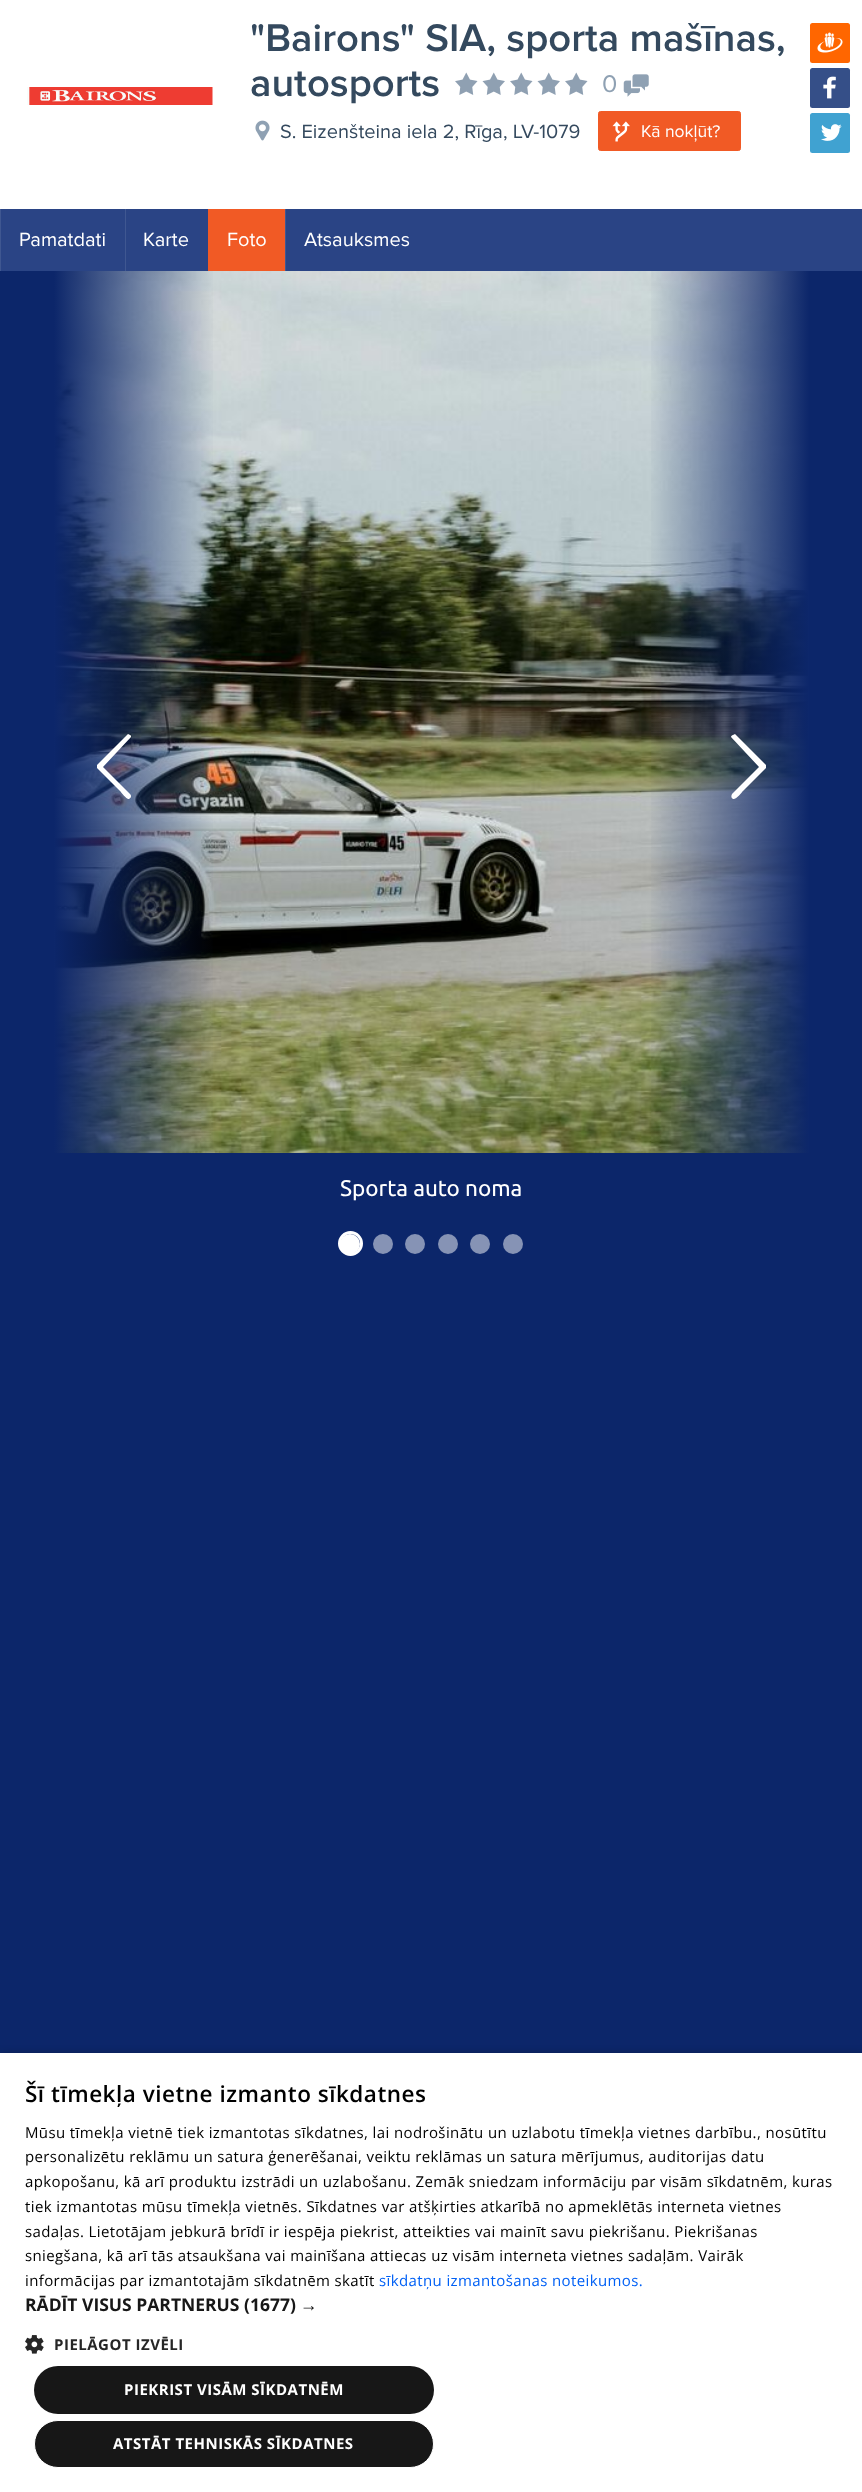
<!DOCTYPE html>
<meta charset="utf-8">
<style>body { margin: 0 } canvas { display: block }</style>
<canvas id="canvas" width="862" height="2492"></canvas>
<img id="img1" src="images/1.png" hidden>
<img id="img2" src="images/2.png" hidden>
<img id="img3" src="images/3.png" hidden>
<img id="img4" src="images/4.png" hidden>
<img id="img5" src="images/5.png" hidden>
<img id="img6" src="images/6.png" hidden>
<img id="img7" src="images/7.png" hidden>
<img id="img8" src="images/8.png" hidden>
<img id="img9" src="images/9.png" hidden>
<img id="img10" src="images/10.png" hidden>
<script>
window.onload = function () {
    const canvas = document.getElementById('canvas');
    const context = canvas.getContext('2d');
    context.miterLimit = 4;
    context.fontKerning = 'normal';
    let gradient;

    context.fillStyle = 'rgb(255, 255, 255)';
    context.fillRect(0, 0, 862, 2492);
    context.drawImage(document.getElementById('img1'), 27, 87, 186, 18);
    context.drawImage(document.getElementById('img2'), 455, 72, 133, 23);
    context.drawImage(document.getElementById('img3'), 623, 74, 26, 23);
    context.fillStyle = 'rgb(255, 102, 0)';
    context.beginPath();
    context.roundRect(810, 23, 40, 40, 2.5);
    context.fill();
    context.drawImage(document.getElementById('img4'), 817, 32, 26, 21);
    context.fillStyle = 'rgb(53, 79, 136)';
    context.beginPath();
    context.roundRect(810, 68, 40, 40, 2.5);
    context.fill();
    context.drawImage(document.getElementById('img5'), 823, 76, 13, 23);
    context.fillStyle = 'rgb(64, 162, 209)';
    context.beginPath();
    context.roundRect(810, 113, 40, 40, 2.5);
    context.fill();
    context.drawImage(document.getElementById('img6'), 821, 124, 21, 17);
    context.drawImage(document.getElementById('img7'), 255, 120, 15, 21);
    context.fillStyle = 'rgb(241, 90, 37)';
    context.beginPath();
    context.roundRect(598.5, 111.5, 142, 39, 2);
    context.fill();
    context.strokeStyle = 'rgb(241, 90, 37)';
    context.stroke();
    context.drawImage(document.getElementById('img8'), 612, 121, 18, 21);
    context.fillStyle = 'rgb(42, 68, 133)';
    context.fillRect(1, 209, 861, 62);
    context.fillStyle = 'rgb(63, 87, 145)';
    context.fillRect(0, 209, 1, 62);
    context.fillRect(125, 209, 1, 62);
    context.fillStyle = 'rgb(241, 90, 37)';
    context.fillRect(208, 209, 77, 62);
    context.fillStyle = 'rgb(63, 87, 145)';
    context.fillRect(285, 209, 1, 62);
    context.fillStyle = 'rgb(12, 38, 106)';
    context.fillRect(0, 1153, 862, 900);
    context.drawImage(document.getElementById('img9'), 55, 271, 753, 882);
    gradient = context.createLinearGradient(0, 766, 216, 766);
    gradient.addColorStop(0, 'rgb(12, 38, 106)');
    gradient.addColorStop(0.25, 'rgb(12, 38, 106)');
    gradient.addColorStop(1, 'rgba(12, 38, 106, 0)');
    context.fillStyle = gradient;
    context.fillRect(0, 271, 213, 882);
    context.fillStyle = 'rgb(255, 255, 255)';
    context.beginPath();
    context.moveTo(130, 794);
    context.bezierCurveTo(132, 796, 131, 798, 129, 799);
    context.bezierCurveTo(127, 800, 121, 792, 120, 791);
    context.lineTo(97, 768);
    context.lineTo(97, 765);
    context.lineTo(128, 734);
    context.lineTo(130, 735);
    context.bezierCurveTo(131, 735, 131, 736, 131, 737);
    context.lineTo(103, 767);
    context.closePath();
    context.fill();
    gradient = context.createLinearGradient(648, 766, 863, 766);
    gradient.addColorStop(0, 'rgba(12, 38, 106, 0)');
    gradient.addColorStop(0.75, 'rgb(12, 38, 106)');
    gradient.addColorStop(1, 'rgb(12, 38, 106)');
    context.fillStyle = gradient;
    context.fillRect(651, 271, 211, 882);
    context.fillStyle = 'rgb(255, 255, 255)';
    context.beginPath();
    context.moveTo(732, 794);
    context.lineTo(759, 767);
    context.lineTo(731, 737);
    context.bezierCurveTo(731, 736, 732, 735, 733, 735);
    context.lineTo(735, 734);
    context.lineTo(766, 765);
    context.lineTo(766, 768);
    context.lineTo(743, 791);
    context.bezierCurveTo(742, 792, 736, 800, 733, 799);
    context.bezierCurveTo(731, 798, 731, 796, 732, 794);
    context.closePath();
    context.fill();
    context.beginPath();
    context.arc(350.5, 1243.5, 11, 0, 2 * Math.PI);
    context.strokeStyle = 'rgb(255, 255, 255)';
    context.lineWidth = 3;
    context.stroke();
    context.beginPath();
    context.arc(350, 1244, 10, 0, 2 * Math.PI);
    context.fill();
    context.fillStyle = 'rgb(134, 147, 181)';
    context.beginPath();
    context.arc(383, 1244, 10, 0, 2 * Math.PI);
    context.fill();
    context.beginPath();
    context.arc(415, 1244, 10, 0, 2 * Math.PI);
    context.fill();
    context.beginPath();
    context.arc(448, 1244, 10, 0, 2 * Math.PI);
    context.fill();
    context.beginPath();
    context.arc(480, 1244, 10, 0, 2 * Math.PI);
    context.fill();
    context.beginPath();
    context.arc(513, 1244, 10, 0, 2 * Math.PI);
    context.fill();
    context.fillStyle = 'rgba(0, 0, 0, 0.35)';
    context.filter = 'blur(5px)';
    context.beginPath();
    context.rect(1, 2055, 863, 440);
    context.fill();
    context.filter = 'none';
    context.fillStyle = 'rgb(255, 255, 255)';
    context.fillRect(0, 2053, 862, 439);
    context.drawImage(document.getElementById('img10'), 25, 2335, 19, 19);
    context.fillStyle = 'rgb(23, 23, 23)';
    context.beginPath();
    context.roundRect(34, 2366, 400, 48, 24);
    context.fill();
    context.beginPath();
    context.roundRect(34.5, 2420.5, 399, 47, 23.5);
    context.fill();
    context.lineWidth = 1;
    context.stroke();
    context.font = '600 40px Proxima Nova';
    context.fillStyle = 'rgb(52, 73, 94)';
    context.fillText('"Bairons" SIA, sporta mašīnas,', 250, 51);
    context.fillText('autosports', 250, 96);
    context.font = '25px Proxima Nova';
    context.fillStyle = 'rgb(143, 161, 179)';
    context.fillText('0', 602, 92);
    context.font = '20px Proxima Nova';
    context.fillStyle = 'rgb(52, 73, 94)';
    context.fillText('S. Eizenšteina iela 2, Rīga, LV-1079', 280, 138);
    context.font = '17.5px Proxima Nova';
    context.fillStyle = 'rgb(255, 255, 255)';
    context.fillText('Kā nokļūt?', 641, 137);
    context.font = '20px Proxima Nova';
    context.fillText('Pamatdati', 19, 246);
    context.fillText('Karte', 143, 246);
    context.fillText('Foto', 227, 246);
    context.fillText('Atsauksmes', 304, 246);
    context.font = '22.5px Ubuntu';
    context.fillText('Sporta auto noma', 340, 1196);
    context.letterSpacing = '0.5px';
    context.font = '600 22.5px Open Sans';
    context.fillStyle = 'rgb(0, 0, 0)';
    context.fillText('Šī tīmekļa vietne izmanto sīkdatnes', 25, 2102);
    context.letterSpacing = '0.38px';
    context.font = '15px Open Sans';
    context.fillText('Mūsu tīmekļa vietnē tiek izmantotas sīkdatnes, lai nodrošinātu un uzlabotu tīmekļa vietnes darbību., nosūtītu', 25, 2138);
    context.fillText('personalizētu reklāmu un satura ģenerēšanai, veiktu reklāmas un satura mērījumus, auditorijas datu', 25, 2162);
    context.fillText('apkopošanu, kā arī produktu izstrādi un uzlabošanu. Zemāk sniedzam informāciju par visām sīkdatnēm, kuras', 25, 2187);
    context.fillText('tiek izmantotas mūsu tīmekļa vietnēs. Sīkdatnes var atšķirties atkarībā no apmeklētās interneta vietnes', 25, 2212);
    context.fillText('sadaļas. Lietotājam jebkurā brīdī ir iespēja piekrist, atteikties vai mainīt savu piekrišanu. Piekrišanas', 25, 2237);
    context.fillText('sniegšana, kā arī tās atsaukšana vai mainīšana attiecas uz visām interneta vietnes sadaļām. Vairāk', 25, 2261);
    context.fillText('informācijas par izmantotajām sīkdatnēm skatīt', 25, 2286);
    context.fillStyle = 'rgb(0, 96, 245)';
    context.fillText('sīkdatņu izmantošanas noteikumos.', 379, 2286);
    context.letterSpacing = '0px';
    context.font = 'bold 17.5px Open Sans';
    context.fillStyle = 'rgb(23, 23, 23)';
    context.fillText('RĀDĪT VISUS PARTNERUS (1677)', 25, 2311);
    context.font = 'bold 17.5px Liberation Sans';
    context.fillText('→', 300, 2311);
    context.letterSpacing = '0.5px';
    context.font = 'bold 15px Open Sans';
    context.fillStyle = 'rgb(38, 38, 38)';
    context.fillText('PIELĀGOT IZVĒLI', 54, 2350);
    context.fillStyle = 'rgb(255, 255, 255)';
    context.fillText('PIEKRIST VISĀM SĪKDATNĒM', 124, 2395);
    context.fillText('ATSTĀT TEHNISKĀS SĪKDATNES', 113, 2449);
};
</script>
